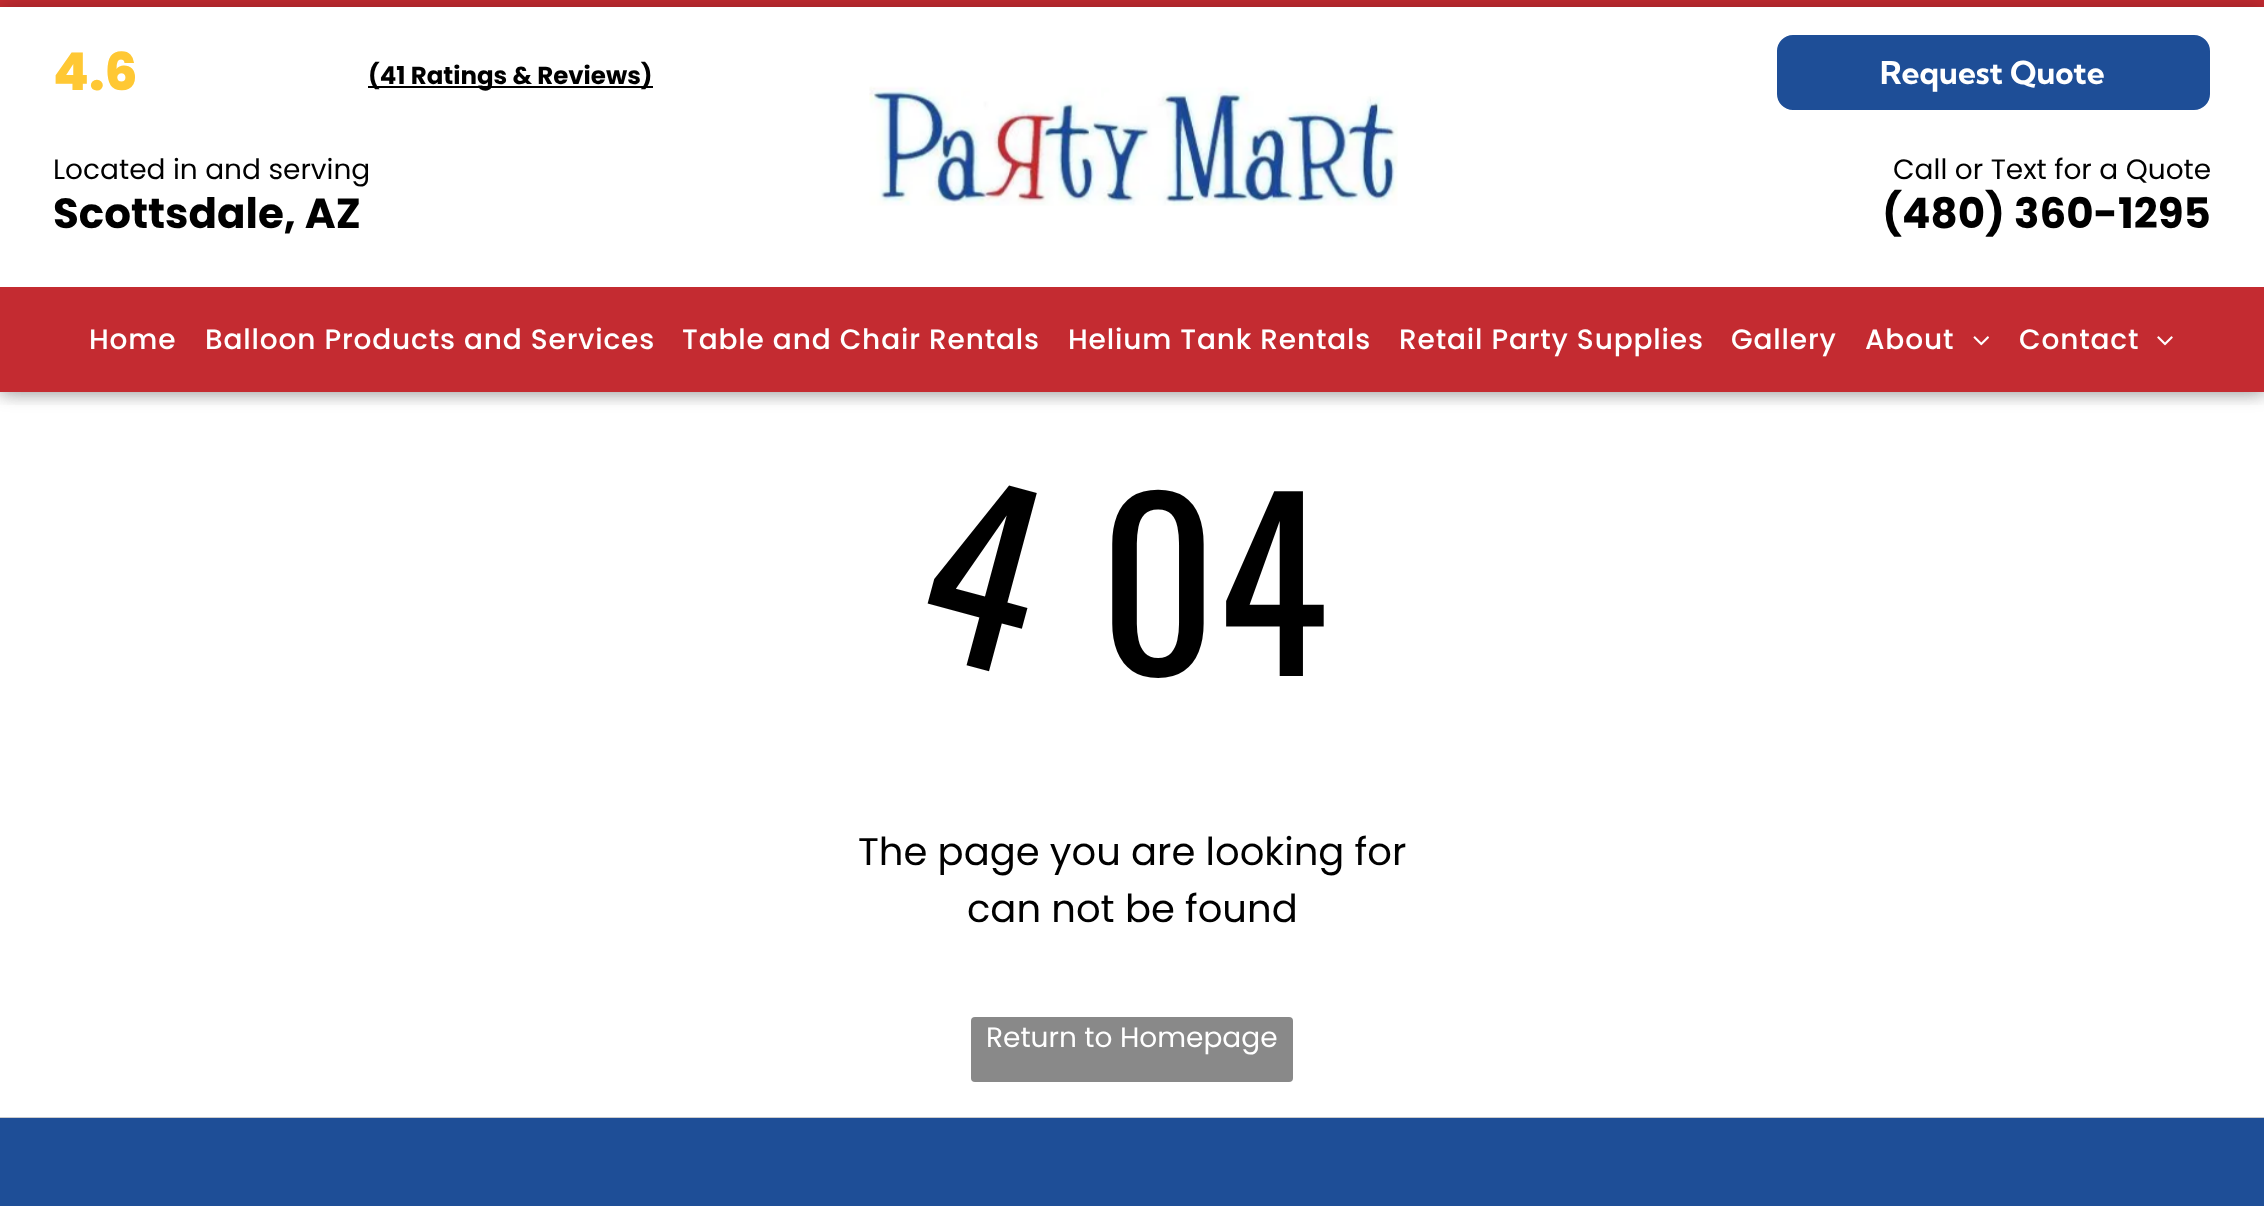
<!DOCTYPE html>
<meta charset="utf-8">
<style>body { margin: 0 } canvas { display: block }</style>
<canvas id="canvas" width="2264" height="1206"></canvas>
<img id="img1" src="images/1.png" hidden>
<img id="img2" src="images/2.png" hidden>
<img id="img3" src="images/3.png" hidden>
<script>
window.onload = function () {
    const canvas = document.getElementById('canvas');
    const context = canvas.getContext('2d');
    context.miterLimit = 4;
    context.fontKerning = 'normal';

    context.fillStyle = 'rgb(255, 255, 255)';
    context.fillRect(0, 0, 2264, 1206);
    context.save();
    context.beginPath();
    context.rect(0, 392, 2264, 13);
    context.clip();
    context.fillStyle = 'rgba(0, 0, 0, 0.25)';
    context.filter = 'blur(9.5px)';
    context.beginPath();
    context.rect(0, 0, 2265, 392);
    context.fill();
    context.filter = 'none';
    context.restore();
    context.fillStyle = 'rgb(196, 43, 49)';
    context.fillRect(0, 0, 2264, 7);
    context.save();
    context.beginPath();
    context.moveTo(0, 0);
    context.lineTo(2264, 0);
    context.lineTo(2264, 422);
    context.lineTo(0, 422);
    context.closePath();
    context.moveTo(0, 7);
    context.lineTo(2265, 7);
    context.lineTo(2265, 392);
    context.lineTo(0, 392);
    context.closePath();
    context.clip('evenodd');
    context.fillStyle = 'rgba(0, 0, 0, 0.25)';
    context.filter = 'blur(9.5px)';
    context.beginPath();
    context.rect(0, 7, 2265, 385);
    context.fill();
    context.filter = 'none';
    context.restore();
    context.fillStyle = 'rgb(0, 0, 0)';
    context.fillRect(368, 86, 285, 2);
    context.drawImage(document.getElementById('img1'), 869, 86, 529, 120);
    context.fillStyle = 'rgb(30, 78, 151)';
    context.beginPath();
    context.roundRect(1776, 34, 435, 77, 17);
    context.fill();
    context.strokeStyle = 'rgb(255, 255, 255)';
    context.lineWidth = 2;
    context.stroke();
    context.fillStyle = 'rgb(196, 43, 49)';
    context.fillRect(0, 287, 2264, 105);
    context.drawImage(document.getElementById('img2'), 1973, 336, 16, 10);
    context.drawImage(document.getElementById('img3'), 2157, 336, 16, 10);
    context.fillStyle = 'rgb(137, 137, 137)';
    context.beginPath();
    context.roundRect(971, 1017, 322, 65, 4);
    context.fill();
    context.fillStyle = 'rgb(204, 204, 204)';
    context.fillRect(0, 1117, 2264, 1);
    context.fillStyle = 'rgb(30, 78, 151)';
    context.fillRect(0, 1118, 2264, 88);
    context.font = '800 52px Poppins';
    context.fillStyle = 'rgb(255, 200, 52)';
    context.fillText('4.6', 53, 90);
    context.font = 'bold 24.5px Poppins';
    context.fillStyle = 'rgb(0, 0, 0)';
    context.fillText('(41 Ratings & Reviews)', 368, 84);
    context.font = '28px Poppins';
    context.fillText('Located in and serving', 53, 179);
    context.font = 'bold 42px Poppins';
    context.fillText('Scottsdale, AZ', 53, 228);
    context.font = 'bold 31.5px Kumbh Sans';
    context.fillStyle = 'rgb(255, 255, 255)';
    context.fillText('Request Quote', 1880, 84);
    context.font = '28px Poppins';
    context.fillStyle = 'rgb(0, 0, 0)';
    context.fillText('Call or Text for a Quote', 1893, 179);
    context.font = 'bold 42px Poppins';
    context.fillText('(480) 360-1295', 1882, 228);
    context.letterSpacing = '0.85px';
    context.font = '500 28px Poppins';
    context.fillStyle = 'rgb(255, 255, 255)';
    context.fillText('Home', 89, 349);
    context.fillText('Balloon Products and Services', 205, 349);
    context.fillText('Table and Chair Rentals', 682, 349);
    context.fillText('Helium Tank Rentals', 1068, 349);
    context.fillText('Retail Party Supplies', 1399, 349);
    context.fillText('Gallery', 1731, 349);
    context.fillText('About', 1865, 349);
    context.fillText('Contact', 2019, 349);
    context.letterSpacing = '0px';
    context.font = '228px Oswald';
    context.fillStyle = 'rgb(0, 0, 0)';
    context.save();
    context.translate(906, 649);
    context.rotate(15 * Math.PI / 180);
    context.fillText('4', 0, 0);
    context.restore();
    context.fillText('04', 1099, 676);
    context.font = '38.5px Poppins';
    context.fillText('The page you are looking for', 858, 865);
    context.fillText('can not be found', 967, 922);
    context.font = '28px Poppins';
    context.fillStyle = 'rgb(255, 255, 255)';
    context.fillText('Return to Homepage', 986, 1047);
};
</script>
